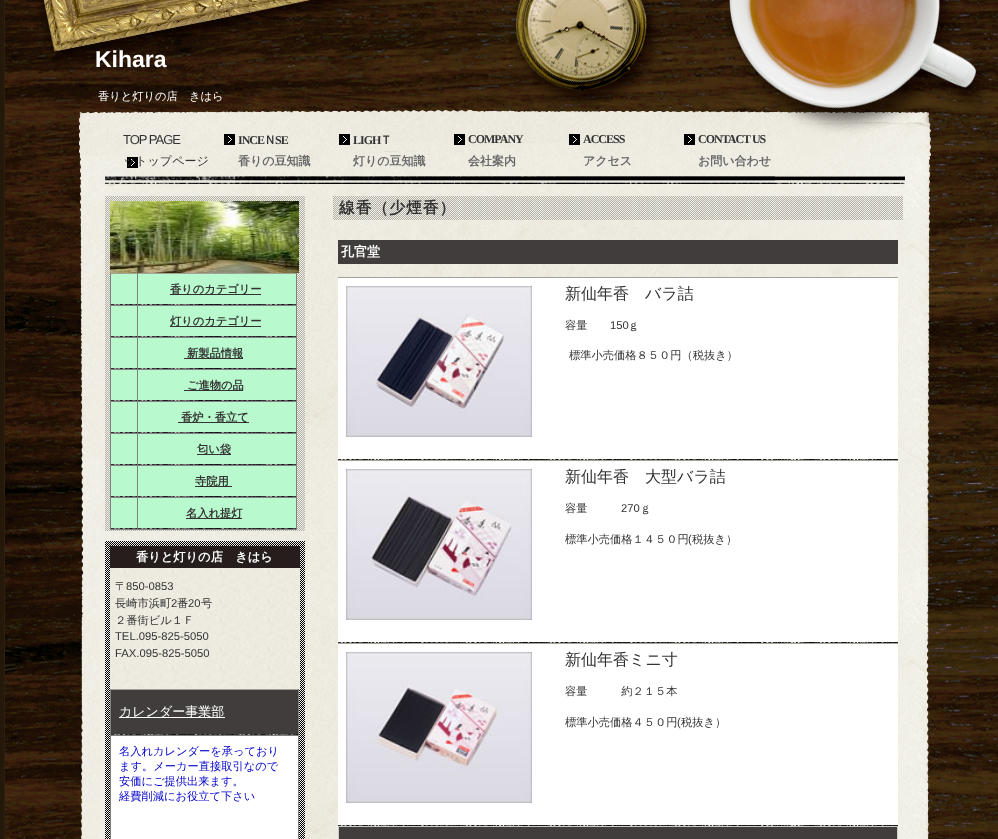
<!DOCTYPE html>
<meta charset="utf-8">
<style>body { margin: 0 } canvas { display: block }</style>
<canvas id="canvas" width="998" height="839"></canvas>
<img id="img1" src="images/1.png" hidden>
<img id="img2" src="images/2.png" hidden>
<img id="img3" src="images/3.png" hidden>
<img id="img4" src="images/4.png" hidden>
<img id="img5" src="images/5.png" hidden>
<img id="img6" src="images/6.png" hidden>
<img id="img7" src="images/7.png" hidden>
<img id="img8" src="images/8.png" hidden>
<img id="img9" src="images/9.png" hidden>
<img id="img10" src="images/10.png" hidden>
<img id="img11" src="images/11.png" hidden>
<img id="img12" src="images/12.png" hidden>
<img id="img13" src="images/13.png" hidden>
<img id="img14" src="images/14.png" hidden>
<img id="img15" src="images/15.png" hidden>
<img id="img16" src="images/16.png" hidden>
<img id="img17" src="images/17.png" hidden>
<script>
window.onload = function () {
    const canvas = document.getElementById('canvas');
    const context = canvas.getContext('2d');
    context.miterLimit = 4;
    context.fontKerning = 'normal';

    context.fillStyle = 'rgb(35, 24, 9)';
    context.fillRect(0, 0, 998, 839);
    context.drawImage(document.getElementById('img1'), 5, 156, 993, 683);
    context.fillStyle = 'rgb(46, 32, 12)';
    context.fillRect(4, 0, 1, 839);
    context.drawImage(document.getElementById('img2'), 5, 0, 993, 156);
    context.drawImage(document.getElementById('img3'), 105, 176, 800, 10);
    context.drawImage(document.getElementById('img4'), 127, 157, 11, 11);
    context.drawImage(document.getElementById('img4'), 224, 134, 11, 11);
    context.drawImage(document.getElementById('img4'), 339, 134, 11, 11);
    context.drawImage(document.getElementById('img4'), 454, 134, 11, 11);
    context.drawImage(document.getElementById('img4'), 569, 134, 11, 11);
    context.drawImage(document.getElementById('img4'), 684, 134, 11, 11);
    context.drawImage(document.getElementById('img5'), 105, 196, 200, 335);
    context.drawImage(document.getElementById('img6'), 110, 201, 189, 72);
    context.fillStyle = 'rgb(128, 128, 128)';
    context.fillRect(110, 529, 187, 1);
    context.fillStyle = 'rgb(185, 249, 206)';
    context.fillRect(111, 274, 26, 30);
    context.drawImage(document.getElementById('img7'), 111, 304, 26, 1);
    context.fillStyle = 'rgb(163, 162, 154)';
    context.fillRect(110, 273, 187, 1);
    context.fillStyle = 'rgb(128, 128, 128)';
    context.fillRect(296, 305, 1, 225);
    context.fillRect(296, 273, 1, 33);
    context.fillRect(137, 497, 1, 33);
    context.fillRect(137, 497, 160, 1);
    context.fillRect(137, 465, 1, 33);
    context.fillRect(137, 465, 160, 1);
    context.fillRect(137, 433, 1, 33);
    context.fillRect(137, 433, 160, 1);
    context.fillRect(137, 401, 1, 33);
    context.fillRect(137, 401, 160, 1);
    context.fillRect(137, 369, 1, 33);
    context.fillRect(137, 369, 160, 1);
    context.fillRect(137, 337, 1, 33);
    context.fillRect(137, 337, 160, 1);
    context.fillRect(137, 305, 1, 33);
    context.fillRect(137, 305, 160, 1);
    context.fillRect(137, 273, 1, 33);
    context.fillRect(110, 497, 1, 33);
    context.fillRect(110, 497, 28, 1);
    context.fillRect(110, 465, 1, 33);
    context.fillRect(110, 465, 28, 1);
    context.fillRect(110, 433, 1, 33);
    context.fillRect(110, 433, 28, 1);
    context.fillRect(110, 401, 1, 33);
    context.fillRect(110, 401, 28, 1);
    context.fillRect(110, 369, 1, 33);
    context.fillRect(110, 369, 28, 1);
    context.fillRect(110, 337, 1, 33);
    context.fillRect(110, 337, 28, 1);
    context.fillRect(110, 305, 1, 33);
    context.fillRect(110, 305, 28, 1);
    context.fillRect(110, 273, 1, 33);
    context.fillStyle = 'rgb(185, 249, 206)';
    context.fillRect(138, 274, 158, 30);
    context.drawImage(document.getElementById('img8'), 138, 304, 158, 1);
    context.fillStyle = 'rgb(51, 51, 51)';
    context.fillRect(170, 294, 91, 1);
    context.fillStyle = 'rgb(185, 249, 206)';
    context.fillRect(111, 306, 26, 30);
    context.drawImage(document.getElementById('img7'), 111, 336, 26, 1);
    context.fillRect(138, 306, 158, 30);
    context.drawImage(document.getElementById('img8'), 138, 336, 158, 1);
    context.fillStyle = 'rgb(51, 51, 51)';
    context.fillRect(170, 326, 91, 1);
    context.fillStyle = 'rgb(185, 249, 206)';
    context.fillRect(111, 338, 26, 30);
    context.drawImage(document.getElementById('img7'), 111, 368, 26, 1);
    context.fillRect(138, 338, 158, 30);
    context.drawImage(document.getElementById('img8'), 138, 368, 158, 1);
    context.fillStyle = 'rgb(51, 51, 51)';
    context.fillRect(184, 358, 59, 1);
    context.fillStyle = 'rgb(185, 249, 206)';
    context.fillRect(111, 370, 26, 30);
    context.drawImage(document.getElementById('img7'), 111, 400, 26, 1);
    context.fillRect(138, 370, 158, 30);
    context.drawImage(document.getElementById('img8'), 138, 400, 158, 1);
    context.fillStyle = 'rgb(51, 51, 51)';
    context.fillRect(184, 390, 59, 1);
    context.fillStyle = 'rgb(185, 249, 206)';
    context.fillRect(111, 402, 26, 30);
    context.drawImage(document.getElementById('img7'), 111, 432, 26, 1);
    context.fillRect(138, 402, 158, 30);
    context.drawImage(document.getElementById('img8'), 138, 432, 158, 1);
    context.fillStyle = 'rgb(51, 51, 51)';
    context.fillRect(178, 422, 71, 1);
    context.fillStyle = 'rgb(185, 249, 206)';
    context.fillRect(111, 434, 26, 30);
    context.drawImage(document.getElementById('img7'), 111, 464, 26, 1);
    context.fillRect(138, 434, 158, 30);
    context.drawImage(document.getElementById('img8'), 138, 464, 158, 1);
    context.fillStyle = 'rgb(51, 51, 51)';
    context.fillRect(197, 454, 34, 1);
    context.fillStyle = 'rgb(185, 249, 206)';
    context.fillRect(111, 466, 26, 30);
    context.drawImage(document.getElementById('img7'), 111, 496, 26, 1);
    context.fillRect(138, 466, 158, 30);
    context.drawImage(document.getElementById('img8'), 138, 496, 158, 1);
    context.fillStyle = 'rgb(51, 51, 51)';
    context.fillRect(195, 486, 37, 1);
    context.fillStyle = 'rgb(185, 249, 206)';
    context.fillRect(111, 498, 26, 30);
    context.drawImage(document.getElementById('img7'), 111, 528, 26, 1);
    context.fillRect(138, 498, 158, 30);
    context.drawImage(document.getElementById('img8'), 138, 528, 158, 1);
    context.fillStyle = 'rgb(51, 51, 51)';
    context.fillRect(186, 518, 56, 1);
    context.drawImage(document.getElementById('img9'), 105, 541, 200, 298);
    context.fillStyle = 'rgb(37, 30, 28)';
    context.fillRect(110, 546, 190, 22);
    context.drawImage(document.getElementById('img10'), 110, 568, 190, 121);
    context.fillStyle = 'rgb(64, 61, 60)';
    context.fillRect(111, 690, 187, 44);
    context.drawImage(document.getElementById('img11'), 111, 734, 187, 1);
    context.fillStyle = 'rgb(163, 162, 154)';
    context.fillRect(110, 689, 189, 1);
    context.fillStyle = 'rgb(128, 128, 128)';
    context.fillRect(298, 735, 1, 104);
    context.fillRect(298, 689, 1, 47);
    context.fillRect(110, 735, 1, 104);
    context.fillRect(110, 735, 189, 1);
    context.fillRect(110, 689, 1, 47);
    context.fillStyle = 'rgb(255, 255, 255)';
    context.fillRect(119, 717, 106, 1);
    context.fillRect(111, 736, 187, 103);
    context.drawImage(document.getElementById('img12'), 333, 196, 570, 24);
    context.fillStyle = 'rgb(64, 61, 60)';
    context.fillRect(338, 240, 560, 24);
    context.fillStyle = 'rgb(163, 162, 154)';
    context.fillRect(338, 277, 560, 1);
    context.fillStyle = 'rgb(255, 255, 255)';
    context.fillRect(338, 278, 560, 181);
    context.drawImage(document.getElementById('img13'), 338, 459, 209, 1);
    context.drawImage(document.getElementById('img14'), 346, 286, 186, 151);
    context.drawImage(document.getElementById('img15'), 547, 459, 351, 1);
    context.fillStyle = 'rgb(163, 162, 154)';
    context.fillRect(338, 460, 560, 1);
    context.fillStyle = 'rgb(255, 255, 255)';
    context.fillRect(338, 461, 560, 181);
    context.drawImage(document.getElementById('img13'), 338, 642, 209, 1);
    context.drawImage(document.getElementById('img16'), 346, 469, 186, 151);
    context.drawImage(document.getElementById('img15'), 547, 642, 351, 1);
    context.fillStyle = 'rgb(163, 162, 154)';
    context.fillRect(338, 643, 560, 1);
    context.fillStyle = 'rgb(255, 255, 255)';
    context.fillRect(338, 644, 560, 181);
    context.drawImage(document.getElementById('img13'), 338, 825, 209, 1);
    context.drawImage(document.getElementById('img17'), 346, 652, 186, 151);
    context.drawImage(document.getElementById('img15'), 547, 825, 351, 1);
    context.fillStyle = 'rgb(64, 61, 60)';
    context.beginPath();
    context.rect(338.5, 826.5, 559, 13);
    context.fill();
    context.strokeStyle = 'rgb(204, 204, 204)';
    context.stroke();
    context.font = 'bold 23px Liberation Sans';
    context.fillStyle = 'rgb(255, 255, 255)';
    context.fillText('Kihara', 95, 67);
    context.font = '500 11.25px WenQuanYi Zen Hei';
    context.fillText('香りと灯りの店　きはら', 98, 100);
    context.letterSpacing = '-1px';
    context.font = '13px Liberation Sans';
    context.fillStyle = 'rgb(51, 51, 51)';
    context.fillText('TOP PAGE', 123, 144);
    context.letterSpacing = '0px';
    context.font = '500 12px WenQuanYi Zen Hei';
    context.fillText('ットップページ', 123, 165);
    context.letterSpacing = '-1px';
    context.font = 'bold 12px Liberation Serif';
    context.fillText('INCE', 238, 144);
    context.font = 'bold 12px WenQuanYi Zen Hei';
    context.fillText('Ｎ', 264, 144);
    context.font = 'bold 12px Liberation Serif';
    context.fillText('SE', 275, 144);
    context.letterSpacing = '0px';
    context.font = 'bold 12px WenQuanYi Zen Hei';
    context.fillStyle = 'rgb(102, 102, 102)';
    context.fillText('香りの豆知識', 238, 165);
    context.letterSpacing = '-1px';
    context.font = 'bold 12px Liberation Serif';
    context.fillStyle = 'rgb(51, 51, 51)';
    context.fillText('LIGH', 353, 144);
    context.font = 'bold 12px WenQuanYi Zen Hei';
    context.fillText('Ｔ', 380, 144);
    context.letterSpacing = '0px';
    context.fillStyle = 'rgb(102, 102, 102)';
    context.fillText('灯りの豆知識', 353, 165);
    context.letterSpacing = '-1px';
    context.font = 'bold 12px Liberation Serif';
    context.fillStyle = 'rgb(51, 51, 51)';
    context.fillText('COMPANY', 468, 143);
    context.letterSpacing = '0px';
    context.font = 'bold 12px WenQuanYi Zen Hei';
    context.fillStyle = 'rgb(102, 102, 102)';
    context.fillText('会社案内', 468, 165);
    context.letterSpacing = '-1px';
    context.font = 'bold 12px Liberation Serif';
    context.fillStyle = 'rgb(51, 51, 51)';
    context.fillText('ACCESS', 583, 143);
    context.letterSpacing = '0px';
    context.font = 'bold 12px WenQuanYi Zen Hei';
    context.fillStyle = 'rgb(102, 102, 102)';
    context.fillText('アクセス', 583, 165);
    context.letterSpacing = '-1px';
    context.font = 'bold 12px Liberation Serif';
    context.fillStyle = 'rgb(51, 51, 51)';
    context.fillText('CONTACT US', 698, 143);
    context.letterSpacing = '0px';
    context.font = 'bold 12px WenQuanYi Zen Hei';
    context.fillStyle = 'rgb(102, 102, 102)';
    context.fillText('お問い合わせ', 698, 165);
    context.font = 'bold 11.25px WenQuanYi Zen Hei';
    context.fillStyle = 'rgb(51, 51, 51)';
    context.fillText('香りのカテゴリー', 170, 293);
    context.fillText('灯りのカテゴリー', 170, 325);
    context.fillText('新製品情報', 187, 357);
    context.fillText('ご進物の品', 187, 389);
    context.fillText('香炉・香立て', 181, 421);
    context.fillText('匂い袋', 197, 453);
    context.fillText('寺院用', 195, 485);
    context.fillText('名入れ提灯', 186, 517);
    context.font = 'bold 12.25px WenQuanYi Zen Hei';
    context.fillStyle = 'rgb(255, 255, 255)';
    context.fillText('香りと灯りの店　きはら', 136, 561);
    context.font = '500 11.25px WenQuanYi Zen Hei';
    context.fillStyle = 'rgb(51, 51, 51)';
    context.fillText('〒', 115, 590);
    context.font = '11.25px Liberation Sans';
    context.fillText('850-0853', 126, 590);
    context.font = '500 11.25px WenQuanYi Zen Hei';
    context.fillText('長崎市浜町', 115, 607);
    context.font = '11.25px Liberation Sans';
    context.fillText('2', 171, 607);
    context.font = '500 11.25px WenQuanYi Zen Hei';
    context.fillText('番', 177, 607);
    context.font = '11.25px Liberation Sans';
    context.fillText('20', 188, 607);
    context.font = '500 11.25px WenQuanYi Zen Hei';
    context.fillText('号', 201, 607);
    context.fillText('２番街ビル１Ｆ', 115, 624);
    context.font = '11.25px Liberation Sans';
    context.fillText('TEL.095-825-5050', 115, 640);
    context.fillText('FAX.095-825-5050', 115, 657);
    context.font = '500 13px WenQuanYi Zen Hei';
    context.fillStyle = 'rgb(255, 255, 255)';
    context.fillText('カレンダー事業部', 119, 716);
    context.font = '500 11.25px WenQuanYi Zen Hei';
    context.fillStyle = 'rgb(0, 0, 204)';
    context.fillText('名入れカレンダーを承っており', 119, 755);
    context.fillText('ます。メーカー直接取引なので', 119, 770);
    context.fillText('安価にご提供出来ます。', 119, 785);
    context.fillText('経費削減にお役立て下さい', 119, 800);
    context.letterSpacing = '1px';
    context.font = 'bold 15.75px WenQuanYi Zen Hei';
    context.fillStyle = 'rgb(51, 51, 51)';
    context.fillText('線香（少煙香）', 339, 213);
    context.letterSpacing = '0px';
    context.font = 'bold 13px WenQuanYi Zen Hei';
    context.fillStyle = 'rgb(255, 255, 255)';
    context.fillText('孔官堂', 341, 256);
    context.font = '500 16px WenQuanYi Zen Hei';
    context.fillStyle = 'rgb(51, 51, 51)';
    context.fillText('新仙年香　バラ詰', 565, 299);
    context.font = '500 11.25px WenQuanYi Zen Hei';
    context.fillText('容量', 565, 329);
    context.font = '11.25px Liberation Sans';
    context.fillText('150', 610, 329);
    context.font = '500 11.25px WenQuanYi Zen Hei';
    context.fillText('ｇ', 628, 329);
    context.fillText('標準小売価格８５０円（税抜き）', 569, 359);
    context.font = '500 16px WenQuanYi Zen Hei';
    context.fillText('新仙年香　大型バラ詰', 565, 482);
    context.font = '500 11.25px WenQuanYi Zen Hei';
    context.fillText('容量', 565, 512);
    context.font = '11.25px Liberation Sans';
    context.fillText('270', 621, 512);
    context.font = '500 11.25px WenQuanYi Zen Hei';
    context.fillText('ｇ', 640, 512);
    context.fillText('標準小売価格１４５０円', 565, 543);
    context.font = '11.25px Liberation Sans';
    context.fillText('(', 688, 543);
    context.font = '500 11.25px WenQuanYi Zen Hei';
    context.fillText('税抜き）', 692, 543);
    context.font = '500 16px WenQuanYi Zen Hei';
    context.fillText('新仙年香ミニ寸', 565, 665);
    context.font = '500 11.25px WenQuanYi Zen Hei';
    context.fillText('容量　　　約２１５本', 565, 695);
    context.fillText('標準小売価格４５０円', 565, 726);
    context.font = '11.25px Liberation Sans';
    context.fillText('(', 677, 726);
    context.font = '500 11.25px WenQuanYi Zen Hei';
    context.fillText('税抜き）', 681, 726);
};
</script>
